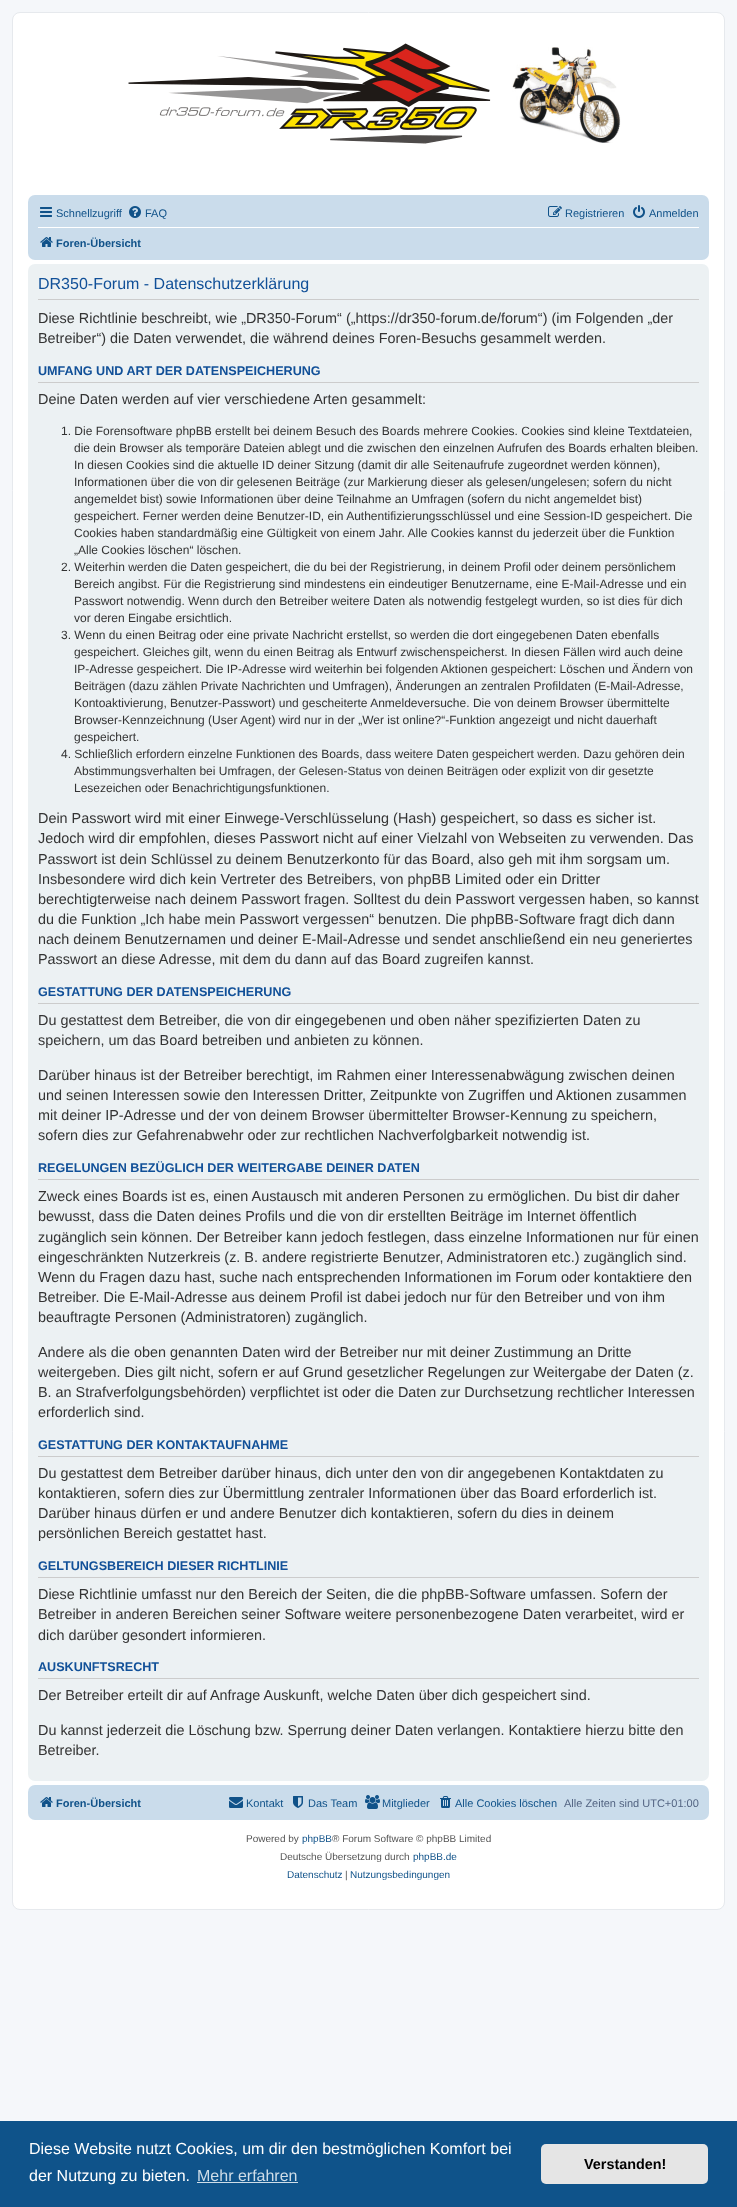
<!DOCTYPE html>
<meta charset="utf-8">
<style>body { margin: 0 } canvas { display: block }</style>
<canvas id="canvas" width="737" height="2207"></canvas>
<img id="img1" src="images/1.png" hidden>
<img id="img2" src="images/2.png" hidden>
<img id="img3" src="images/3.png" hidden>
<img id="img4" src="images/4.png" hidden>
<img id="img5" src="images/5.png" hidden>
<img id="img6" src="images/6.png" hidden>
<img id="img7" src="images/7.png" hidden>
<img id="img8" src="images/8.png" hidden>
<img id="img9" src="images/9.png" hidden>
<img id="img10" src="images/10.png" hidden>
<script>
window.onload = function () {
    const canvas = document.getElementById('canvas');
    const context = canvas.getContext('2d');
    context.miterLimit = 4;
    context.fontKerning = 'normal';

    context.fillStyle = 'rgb(245, 247, 250)';
    context.fillRect(0, 0, 737, 2207);
    context.fillStyle = 'rgb(255, 255, 255)';
    context.beginPath();
    context.roundRect(12.5, 12.5, 712, 1897, 7.5);
    context.fill();
    context.strokeStyle = 'rgb(230, 233, 237)';
    context.stroke();
    context.drawImage(document.getElementById('img1'), 128, 43, 493, 101);
    context.fillStyle = 'rgb(202, 220, 235)';
    context.beginPath();
    context.roundRect(28, 195, 681, 65, 7);
    context.fill();
    context.drawImage(document.getElementById('img2'), 40, 207, 12, 10);
    context.drawImage(document.getElementById('img3'), 129, 206, 12, 12);
    context.drawImage(document.getElementById('img4'), 548, 206, 14, 11);
    context.drawImage(document.getElementById('img5'), 633, 205, 12, 13);
    context.fillStyle = 'rgb(255, 255, 255)';
    context.fillRect(38, 227, 661, 1);
    context.drawImage(document.getElementById('img6'), 40, 237, 13, 10);
    context.fillStyle = 'rgb(236, 241, 243)';
    context.beginPath();
    context.roundRect(28, 264, 681, 1517, 7);
    context.fill();
    context.fillStyle = 'rgb(204, 204, 204)';
    context.fillRect(38, 299, 661, 1);
    context.fillRect(38, 382, 661, 1);
    context.fillRect(38, 1003, 661, 1);
    context.fillRect(38, 1179, 661, 1);
    context.fillRect(38, 1456, 661, 1);
    context.fillRect(38, 1577, 661, 1);
    context.fillRect(38, 1678, 661, 1);
    context.fillStyle = 'rgb(202, 220, 235)';
    context.beginPath();
    context.roundRect(28, 1785, 681, 35, 7);
    context.fill();
    context.drawImage(document.getElementById('img6'), 40, 1797, 13, 10);
    context.drawImage(document.getElementById('img7'), 229, 1797, 14, 11);
    context.drawImage(document.getElementById('img8'), 293, 1796, 10, 12);
    context.drawImage(document.getElementById('img9'), 365, 1795, 15, 14);
    context.drawImage(document.getElementById('img10'), 440, 1796, 11, 12);
    context.fillStyle = 'rgb(15, 83, 138)';
    context.fillRect(0, 2121, 737, 86);
    context.fillStyle = 'rgb(207, 221, 232)';
    context.fillRect(197, 2182, 101, 1);
    context.fillStyle = 'rgb(229, 229, 229)';
    context.beginPath();
    context.roundRect(541, 2144, 167, 40, 5);
    context.fill();
    context.font = '11px Liberation Sans';
    context.fillStyle = 'rgb(16, 82, 137)';
    context.fillText('Schnellzugriff', 56, 217);
    context.fillText('FAQ', 145, 217);
    context.fillText('Registrieren', 565, 217);
    context.fillText('Anmelden', 649, 217);
    context.font = 'bold 11px Liberation Sans';
    context.fillText('Foren-Übersicht', 56, 247);
    context.font = '16px Liberation Sans';
    context.fillStyle = 'rgb(17, 80, 152)';
    context.fillText('DR350-Forum - Datenschutzerklärung', 38, 289);
    context.font = '14.4px Liberation Sans';
    context.fillStyle = 'rgb(51, 51, 51)';
    context.fillText('Diese Richtlinie beschreibt, wie „DR350-Forum“ („https://dr350-forum.de/forum“) (im Folgenden „der', 38, 323);
    context.fillText('Betreiber“) die Daten verwendet, die während deines Foren-Besuchs gesammelt werden.', 38, 343);
    context.font = 'bold 12.6px Liberation Sans';
    context.fillStyle = 'rgb(17, 80, 152)';
    context.fillText('UMFANG UND ART DER DATENSPEICHERUNG', 38, 375);
    context.font = '14.4px Liberation Sans';
    context.fillStyle = 'rgb(51, 51, 51)';
    context.fillText('Deine Daten werden auf vier verschiedene Arten gesammelt:', 38, 404);
    context.font = '12px Liberation Sans';
    context.fillText('1. Die Forensoftware phpBB erstellt bei deinem Besuch des Boards mehrere Cookies. Cookies sind kleine Textdateien,', 61, 435);
    context.fillText('die dein Browser als temporäre Dateien ablegt und die zwischen den einzelnen Aufrufen des Boards erhalten bleiben.', 74, 452);
    context.fillText('In diesen Cookies sind die aktuelle ID deiner Sitzung (damit dir alle Seitenaufrufe zugeordnet werden können),', 74, 469);
    context.fillText('Informationen über die von dir gelesenen Beiträge (zur Markierung dieser als gelesen/ungelesen; sofern du nicht', 74, 486);
    context.fillText('angemeldet bist) sowie Informationen über deine Teilnahme an Umfragen (sofern du nicht angemeldet bist)', 74, 503);
    context.fillText('gespeichert. Ferner werden deine Benutzer-ID, ein Authentifizierungsschlüssel und eine Session-ID gespeichert. Die', 74, 520);
    context.fillText('Cookies haben standardmäßig eine Gültigkeit von einem Jahr. Alle Cookies kannst du jederzeit über die Funktion', 74, 537);
    context.fillText('„Alle Cookies löschen“ löschen.', 74, 554);
    context.fillText('2. Weiterhin werden die Daten gespeichert, die du bei der Registrierung, in deinem Profil oder deinem persönlichem', 61, 571);
    context.fillText('Bereich angibst. Für die Registrierung sind mindestens ein eindeutiger Benutzername, eine E-Mail-Adresse und ein', 74, 588);
    context.fillText('Passwort notwendig. Wenn durch den Betreiber weitere Daten als notwendig festgelegt wurden, so ist dies für dich', 74, 605);
    context.fillText('vor deren Eingabe ersichtlich.', 74, 622);
    context.fillText('3. Wenn du einen Beitrag oder eine private Nachricht erstellst, so werden die dort eingegebenen Daten ebenfalls', 61, 639);
    context.fillText('gespeichert. Gleiches gilt, wenn du einen Beitrag als Entwurf zwischenspeicherst. In diesen Fällen wird auch deine', 74, 656);
    context.fillText('IP-Adresse gespeichert. Die IP-Adresse wird weiterhin bei folgenden Aktionen gespeichert: Löschen und Ändern von', 74, 673);
    context.fillText('Beiträgen (dazu zählen Private Nachrichten und Umfragen), Änderungen an zentralen Profildaten (E-Mail-Adresse,', 74, 690);
    context.fillText('Kontoaktivierung, Benutzer-Passwort) und gescheiterte Anmeldeversuche. Die von deinem Browser übermittelte', 74, 707);
    context.fillText('Browser-Kennzeichnung (User Agent) wird nur in der „Wer ist online?“-Funktion angezeigt und nicht dauerhaft', 74, 724);
    context.fillText('gespeichert.', 74, 741);
    context.fillText('4. Schließlich erfordern einzelne Funktionen des Boards, dass weitere Daten gespeichert werden. Dazu gehören dein', 61, 758);
    context.fillText('Abstimmungsverhalten bei Umfragen, der Gelesen-Status von deinen Beiträgen oder explizit von dir gesetzte', 74, 775);
    context.fillText('Lesezeichen oder Benachrichtigungsfunktionen.', 74, 792);
    context.font = '14.4px Liberation Sans';
    context.fillText('Dein Passwort wird mit einer Einwege-Verschlüsselung (Hash) gespeichert, so dass es sicher ist.', 38, 823);
    context.fillText('Jedoch wird dir empfohlen, dieses Passwort nicht auf einer Vielzahl von Webseiten zu verwenden. Das', 38, 843);
    context.fillText('Passwort ist dein Schlüssel zu deinem Benutzerkonto für das Board, also geh mit ihm sorgsam um.', 38, 864);
    context.fillText('Insbesondere wird dich kein Vertreter des Betreibers, von phpBB Limited oder ein Dritter', 38, 884);
    context.fillText('berechtigterweise nach deinem Passwort fragen. Solltest du dein Passwort vergessen haben, so kannst', 38, 904);
    context.fillText('du die Funktion „Ich habe mein Passwort vergessen“ benutzen. Die phpBB-Software fragt dich dann', 38, 924);
    context.fillText('nach deinem Benutzernamen und deiner E-Mail-Adresse und sendet anschließend ein neu generiertes', 38, 944);
    context.fillText('Passwort an diese Adresse, mit dem du dann auf das Board zugreifen kannst.', 38, 964);
    context.font = 'bold 12.6px Liberation Sans';
    context.fillStyle = 'rgb(17, 80, 152)';
    context.fillText('GESTATTUNG DER DATENSPEICHERUNG', 38, 996);
    context.font = '14.4px Liberation Sans';
    context.fillStyle = 'rgb(51, 51, 51)';
    context.fillText('Du gestattest dem Betreiber, die von dir eingegebenen und oben näher spezifizierten Daten zu', 38, 1025);
    context.fillText('speichern, um das Board betreiben und anbieten zu können.', 38, 1045);
    context.fillText('Darüber hinaus ist der Betreiber berechtigt, im Rahmen einer Interessenabwägung zwischen deinen', 38, 1080);
    context.fillText('und seinen Interessen sowie den Interessen Dritter, Zeitpunkte von Zugriffen und Aktionen zusammen', 38, 1100);
    context.fillText('mit deiner IP-Adresse und der von deinem Browser übermittelter Browser-Kennung zu speichern,', 38, 1120);
    context.fillText('sofern dies zur Gefahrenabwehr oder zur rechtlichen Nachverfolgbarkeit notwendig ist.', 38, 1140);
    context.font = 'bold 12.6px Liberation Sans';
    context.fillStyle = 'rgb(17, 80, 152)';
    context.fillText('REGELUNGEN BEZÜGLICH DER WEITERGABE DEINER DATEN', 38, 1172);
    context.font = '14.4px Liberation Sans';
    context.fillStyle = 'rgb(51, 51, 51)';
    context.fillText('Zweck eines Boards ist es, einen Austausch mit anderen Personen zu ermöglichen. Du bist dir daher', 38, 1201);
    context.fillText('bewusst, dass die Daten deines Profils und die von dir erstellten Beiträge im Internet öffentlich', 38, 1221);
    context.fillText('zugänglich sein können. Der Betreiber kann jedoch festlegen, dass einzelne Informationen nur für einen', 38, 1242);
    context.fillText('eingeschränkten Nutzerkreis (z. B. andere registrierte Benutzer, Administratoren etc.) zugänglich sind.', 38, 1262);
    context.fillText('Wenn du Fragen dazu hast, suche nach entsprechenden Informationen im Forum oder kontaktiere den', 38, 1282);
    context.fillText('Betreiber. Die E-Mail-Adresse aus deinem Profil ist dabei jedoch nur für den Betreiber und von ihm', 38, 1302);
    context.fillText('beauftragte Personen (Administratoren) zugänglich.', 38, 1322);
    context.fillText('Andere als die oben genannten Daten wird der Betreiber nur mit deiner Zustimmung an Dritte', 38, 1357);
    context.fillText('weitergeben. Dies gilt nicht, sofern er auf Grund gesetzlicher Regelungen zur Weitergabe der Daten (z.', 38, 1377);
    context.fillText('B. an Strafverfolgungsbehörden) verpflichtet ist oder die Daten zur Durchsetzung rechtlicher Interessen', 38, 1397);
    context.fillText('erforderlich sind.', 38, 1417);
    context.font = 'bold 12.6px Liberation Sans';
    context.fillStyle = 'rgb(17, 80, 152)';
    context.fillText('GESTATTUNG DER KONTAKTAUFNAHME', 38, 1449);
    context.font = '14.4px Liberation Sans';
    context.fillStyle = 'rgb(51, 51, 51)';
    context.fillText('Du gestattest dem Betreiber darüber hinaus, dich unter den von dir angegebenen Kontaktdaten zu', 38, 1478);
    context.fillText('kontaktieren, sofern dies zur Übermittlung zentraler Informationen über das Board erforderlich ist.', 38, 1498);
    context.fillText('Darüber hinaus dürfen er und andere Benutzer dich kontaktieren, sofern du dies in deinem', 38, 1518);
    context.fillText('persönlichen Bereich gestattet hast.', 38, 1538);
    context.font = 'bold 12.6px Liberation Sans';
    context.fillStyle = 'rgb(17, 80, 152)';
    context.fillText('GELTUNGSBEREICH DIESER RICHTLINIE', 38, 1570);
    context.font = '14.4px Liberation Sans';
    context.fillStyle = 'rgb(51, 51, 51)';
    context.fillText('Diese Richtlinie umfasst nur den Bereich der Seiten, die die phpBB-Software umfassen. Sofern der', 38, 1599);
    context.fillText('Betreiber in anderen Bereichen seiner Software weitere personenbezogene Daten verarbeitet, wird er', 38, 1619);
    context.fillText('dich darüber gesondert informieren.', 38, 1640);
    context.font = 'bold 12.6px Liberation Sans';
    context.fillStyle = 'rgb(17, 80, 152)';
    context.fillText('AUSKUNFTSRECHT', 38, 1671);
    context.font = '14.4px Liberation Sans';
    context.fillStyle = 'rgb(51, 51, 51)';
    context.fillText('Der Betreiber erteilt dir auf Anfrage Auskunft, welche Daten über dich gespeichert sind.', 38, 1700);
    context.fillText('Du kannst jederzeit die Löschung bzw. Sperrung deiner Daten verlangen. Kontaktiere hierzu bitte den', 38, 1735);
    context.fillText('Betreiber.', 38, 1755);
    context.font = 'bold 11px Liberation Sans';
    context.fillStyle = 'rgb(16, 82, 137)';
    context.fillText('Foren-Übersicht', 56, 1807);
    context.font = '11px Liberation Sans';
    context.fillText('Kontakt', 246, 1807);
    context.fillText('Das Team', 308, 1807);
    context.fillText('Mitglieder', 382, 1807);
    context.fillText('Alle Cookies löschen', 455, 1807);
    context.fillStyle = 'rgb(83, 100, 130)';
    context.fillText('Alle Zeiten sind UTC+01:00', 564, 1807);
    context.font = '10px Liberation Sans';
    context.fillStyle = 'rgb(85, 85, 85)';
    context.fillText('Powered by', 246, 1842);
    context.fillStyle = 'rgb(16, 82, 137)';
    context.fillText('phpBB', 302, 1842);
    context.fillStyle = 'rgb(85, 85, 85)';
    context.fillText('® Forum Software © phpBB Limited', 332, 1842);
    context.fillText('Deutsche Übersetzung durch', 280, 1860);
    context.fillStyle = 'rgb(16, 82, 137)';
    context.fillText('phpBB.de', 413, 1860);
    context.fillText('Datenschutz', 287, 1878);
    context.fillStyle = 'rgb(85, 85, 85)';
    context.fillText('|', 345, 1878);
    context.fillStyle = 'rgb(16, 82, 137)';
    context.fillText('Nutzungsbedingungen', 350, 1878);
    context.font = '16px Liberation Sans';
    context.fillStyle = 'rgb(255, 255, 255)';
    context.fillText('Diese Website nutzt Cookies, um dir den bestmöglichen Komfort bei', 29, 2154);
    context.fillText('der Nutzung zu bieten.', 29, 2181);
    context.fillStyle = 'rgb(207, 221, 232)';
    context.fillText('Mehr erfahren', 197, 2181);
    context.font = 'bold 14.4px Liberation Sans';
    context.fillStyle = 'rgb(0, 0, 0)';
    context.fillText('Verstanden!', 584, 2169);
};
</script>
